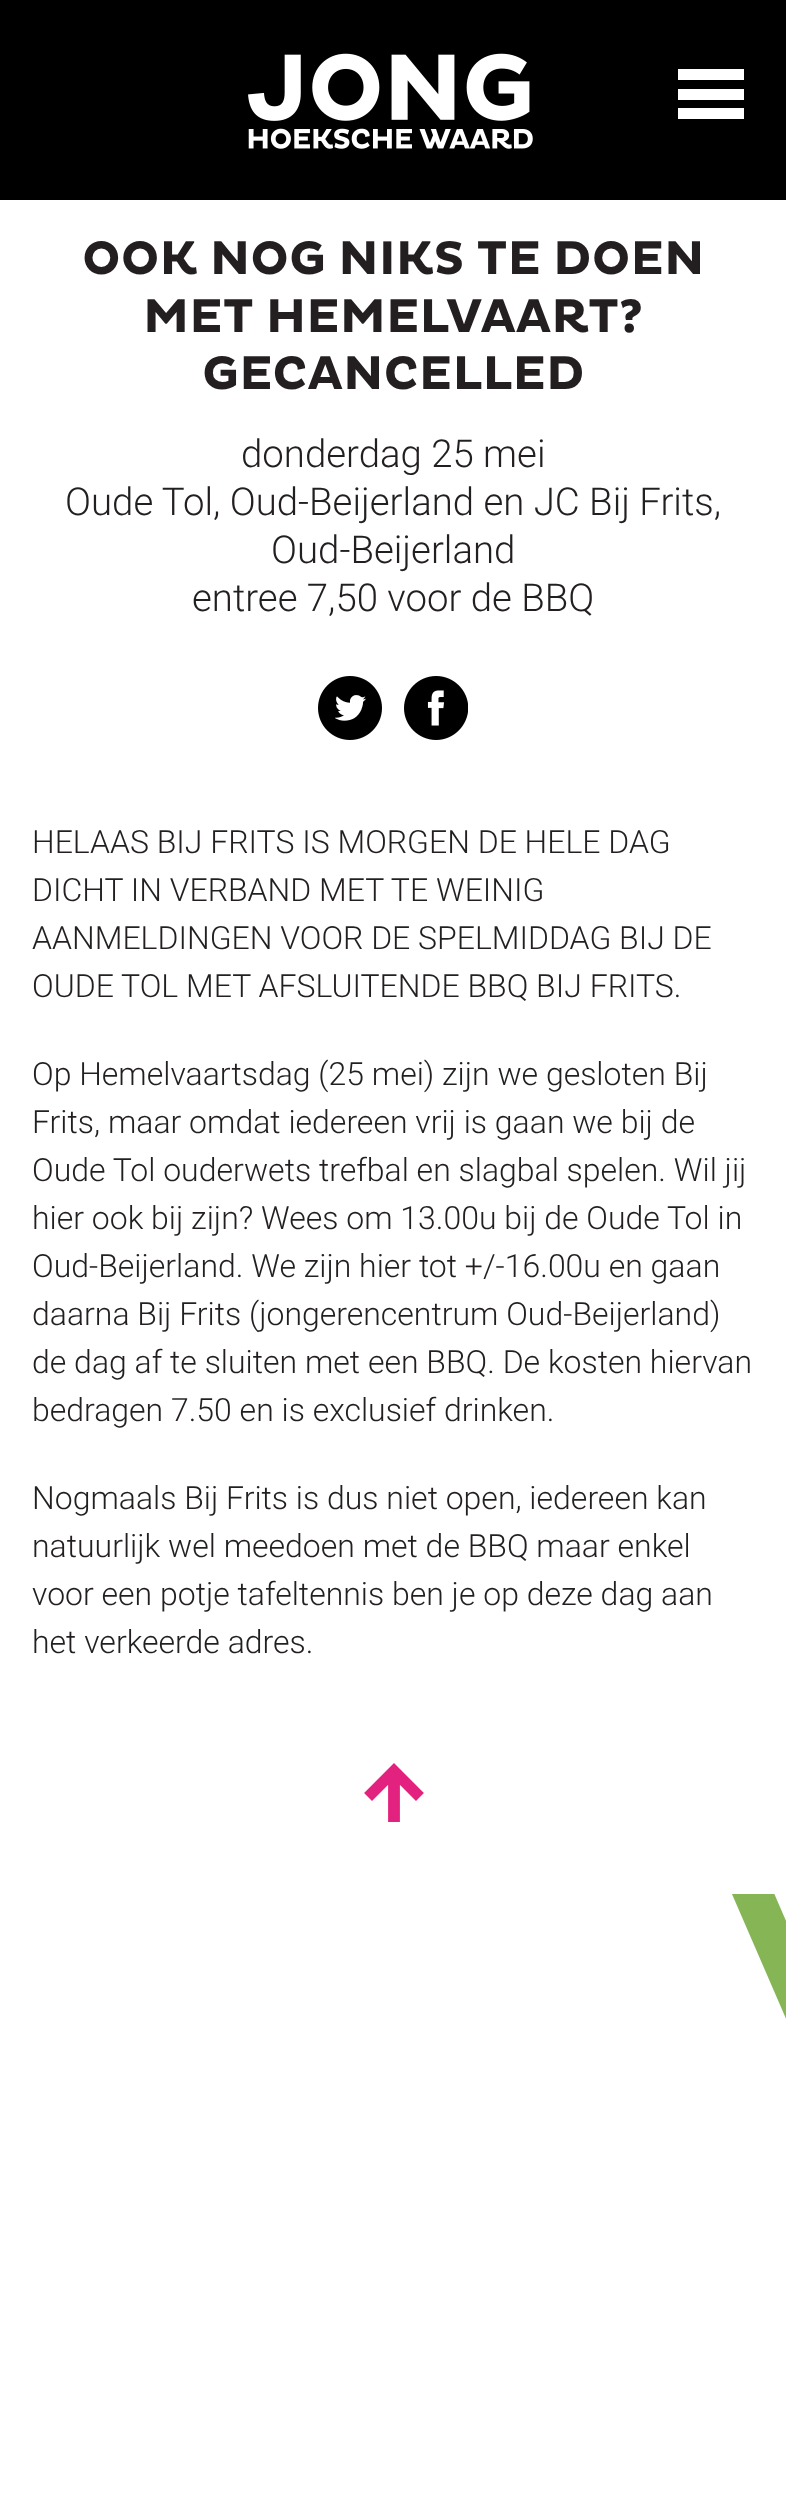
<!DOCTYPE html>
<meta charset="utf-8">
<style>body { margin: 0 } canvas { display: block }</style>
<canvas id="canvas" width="786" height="2513"></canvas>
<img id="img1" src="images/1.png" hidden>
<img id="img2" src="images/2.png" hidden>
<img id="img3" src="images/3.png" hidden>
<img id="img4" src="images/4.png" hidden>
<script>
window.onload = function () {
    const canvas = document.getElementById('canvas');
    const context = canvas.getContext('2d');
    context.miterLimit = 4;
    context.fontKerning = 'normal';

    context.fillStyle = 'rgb(255, 255, 255)';
    context.fillRect(0, 0, 786, 2513);
    context.fillStyle = 'rgb(0, 0, 0)';
    context.fillRect(0, 0, 786, 200);
    context.drawImage(document.getElementById('img1'), 248, 53, 285, 96);
    context.fillStyle = 'rgb(255, 255, 255)';
    context.fillRect(678, 69, 66, 11);
    context.fillRect(678, 89, 66, 11);
    context.fillRect(678, 108, 66, 11);
    context.drawImage(document.getElementById('img2'), 318, 676, 64, 64);
    context.drawImage(document.getElementById('img3'), 404, 676, 64, 64);
    context.fillStyle = 'rgb(227, 34, 128)';
    context.beginPath();
    context.moveTo(367, 1793);
    context.lineTo(372, 1798);
    context.lineTo(391, 1779);
    context.lineTo(391, 1820);
    context.lineTo(397, 1820);
    context.lineTo(397, 1779);
    context.lineTo(416, 1798);
    context.lineTo(421, 1793);
    context.lineTo(394, 1766);
    context.closePath();
    context.fill();
    context.beginPath();
    context.moveTo(367.5, 1793);
    context.lineTo(372, 1797.5);
    context.lineTo(390.5, 1779);
    context.lineTo(390.5, 1819.5);
    context.lineTo(397.5, 1819.5);
    context.lineTo(397.5, 1779);
    context.lineTo(416, 1797.5);
    context.lineTo(420.5, 1793);
    context.lineTo(394, 1766.5);
    context.closePath();
    context.strokeStyle = 'rgb(227, 34, 128)';
    context.lineWidth = 4.8;
    context.stroke();
    context.drawImage(document.getElementById('img4'), 732, 1894, 54, 125);
    context.font = 'bold 48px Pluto';
    context.fillStyle = 'rgb(35, 31, 32)';
    context.fillText('OOK NOG NIKS TE DOEN', 82, 274);
    context.fillText('MET HEMELVAART?', 143, 332);
    context.fillText('GECANCELLED', 202, 389);
    context.font = '300 38.4px Roboto';
    context.fillText('donderdag 25 mei', 241, 467);
    context.fillText('Oude Tol, Oud-Beijerland en JC Bij Frits,', 65, 515);
    context.fillText('Oud-Beijerland', 271, 563);
    context.fillText('entree 7,50 voor de BBQ', 192, 611);
    context.font = '300 32px Roboto';
    context.fillText('HELAAS BIJ FRITS IS MORGEN DE HELE DAG', 32, 853);
    context.fillText('DICHT IN VERBAND MET TE WEINIG', 32, 901);
    context.fillText('AANMELDINGEN VOOR DE SPELMIDDAG BIJ DE', 32, 949);
    context.fillText('OUDE TOL MET AFSLUITENDE BBQ BIJ FRITS.', 32, 997);
    context.fillText('Op Hemelvaartsdag (25 mei) zijn we gesloten Bij', 32, 1085);
    context.fillText('Frits, maar omdat iedereen vrij is gaan we bij de', 32, 1133);
    context.fillText('Oude Tol ouderwets trefbal en slagbal spelen. Wil jij', 32, 1181);
    context.fillText('hier ook bij zijn? Wees om 13.00u bij de Oude Tol in', 32, 1229);
    context.fillText('Oud-Beijerland. We zijn hier tot +/-16.00u en gaan', 32, 1277);
    context.fillText('daarna Bij Frits (jongerencentrum Oud-Beijerland)', 32, 1325);
    context.fillText('de dag af te sluiten met een BBQ. De kosten hiervan', 32, 1373);
    context.fillText('bedragen 7.50 en is exclusief drinken.', 32, 1421);
    context.fillText('Nogmaals Bij Frits is dus niet open, iedereen kan', 32, 1509);
    context.fillText('natuurlijk wel meedoen met de BBQ maar enkel', 32, 1557);
    context.fillText('voor een potje tafeltennis ben je op deze dag aan', 32, 1605);
    context.fillText('het verkeerde adres.', 32, 1653);
};
</script>
